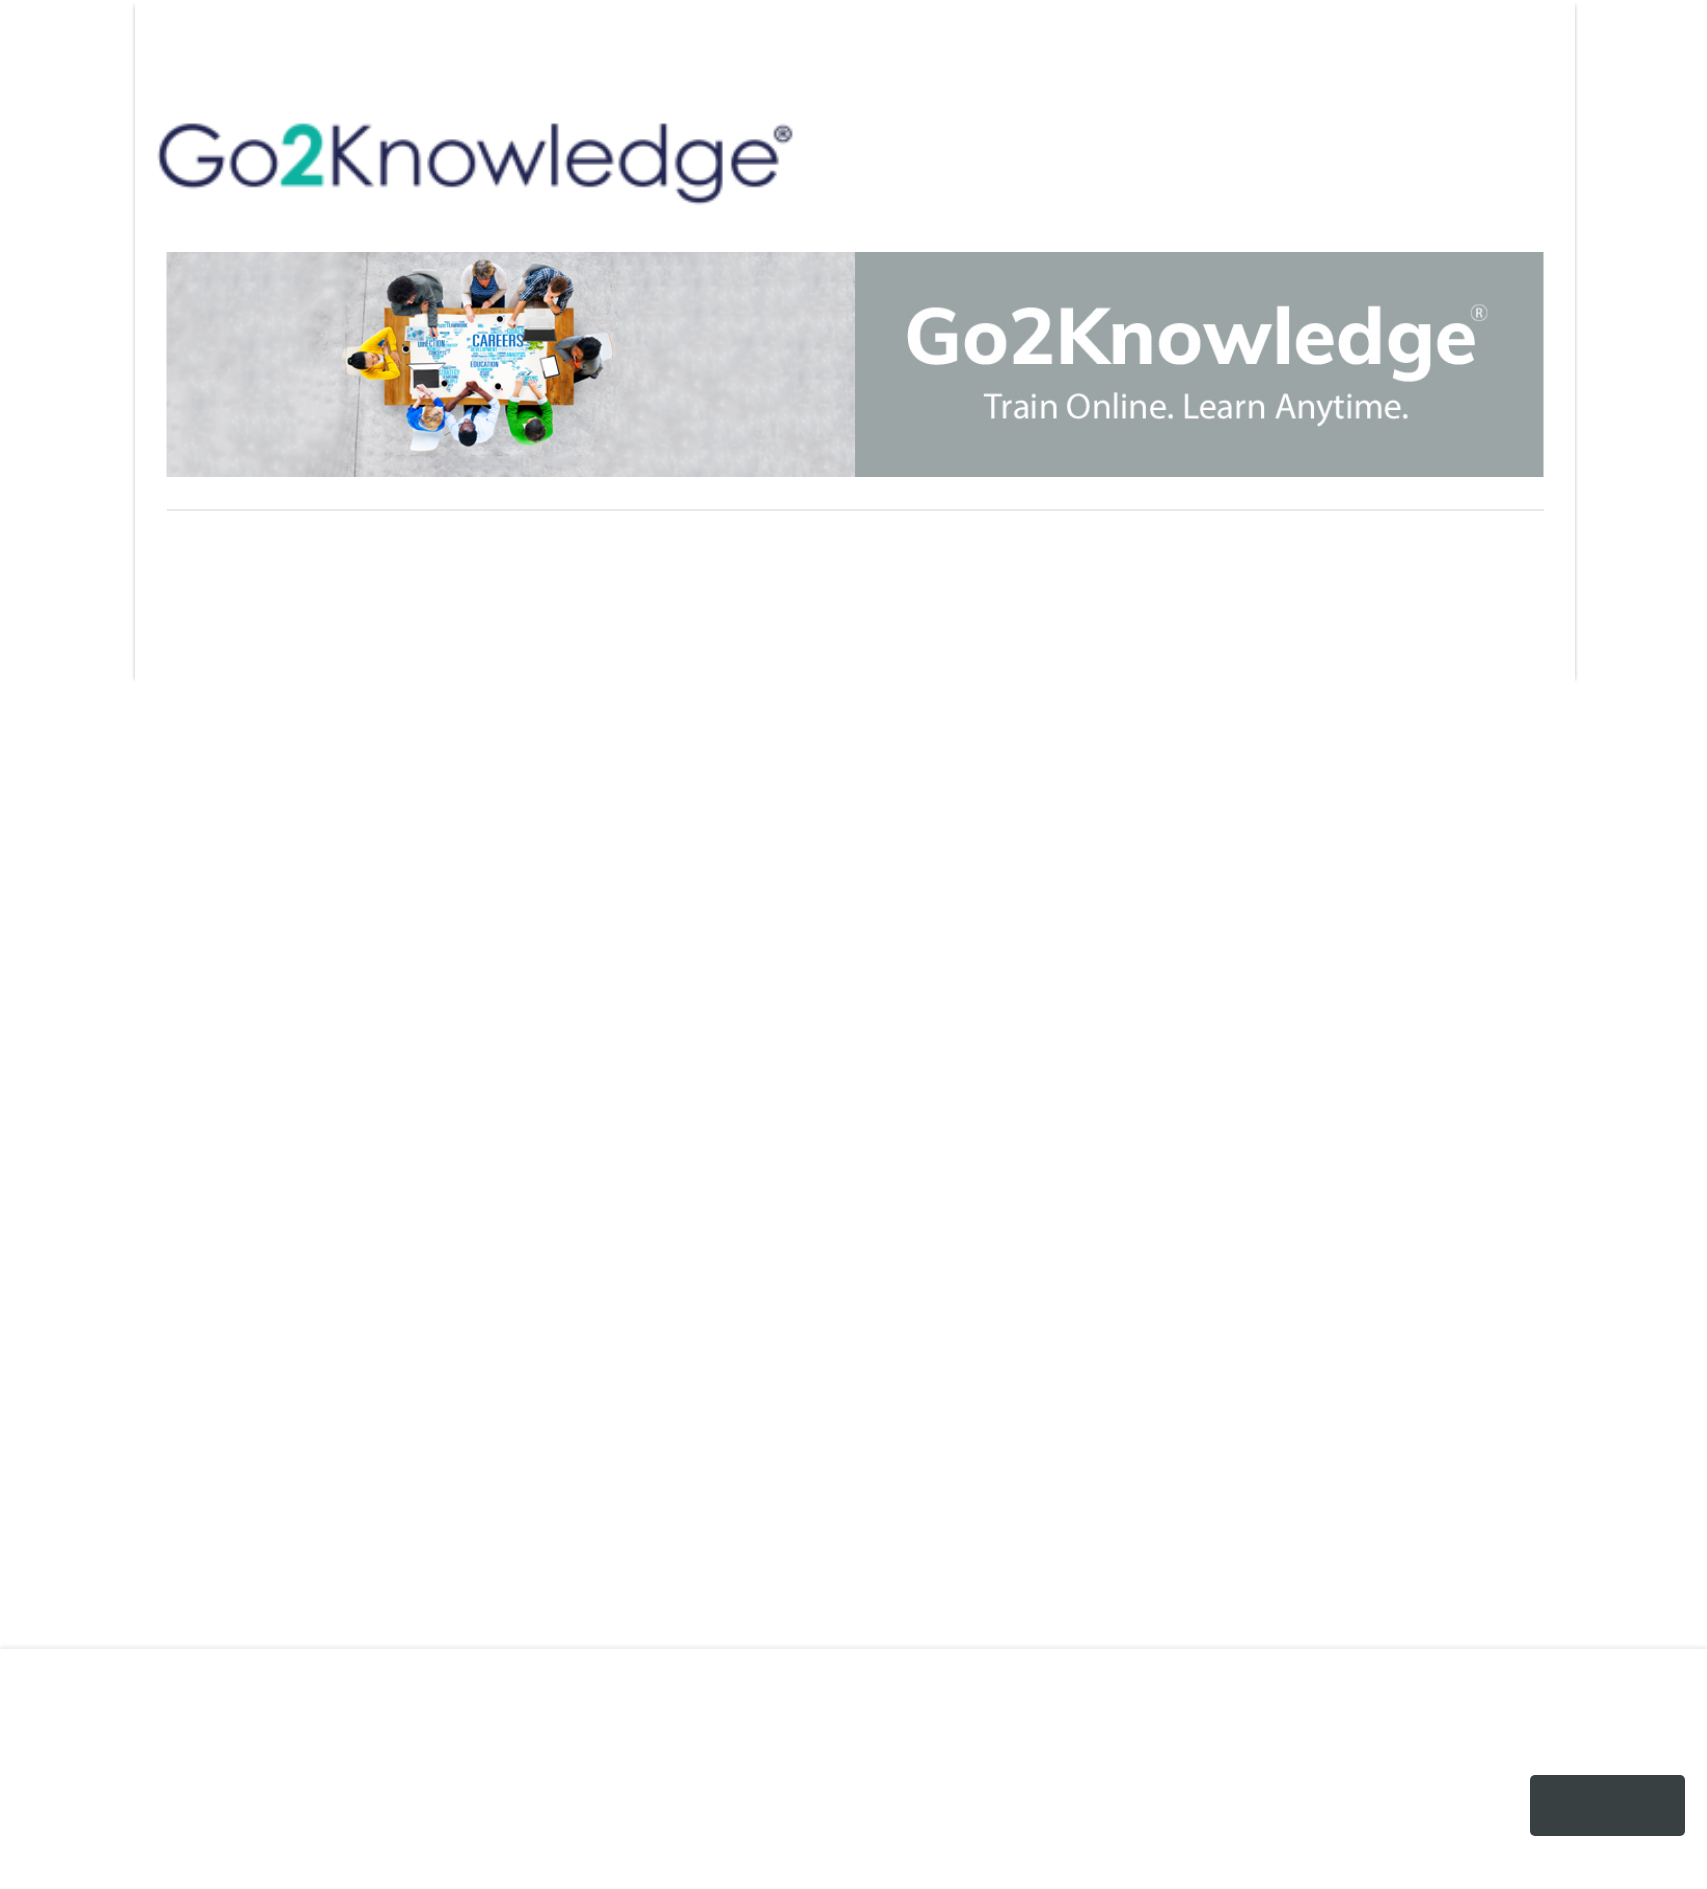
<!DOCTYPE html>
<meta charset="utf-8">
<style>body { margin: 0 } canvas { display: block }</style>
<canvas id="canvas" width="1707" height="1889"></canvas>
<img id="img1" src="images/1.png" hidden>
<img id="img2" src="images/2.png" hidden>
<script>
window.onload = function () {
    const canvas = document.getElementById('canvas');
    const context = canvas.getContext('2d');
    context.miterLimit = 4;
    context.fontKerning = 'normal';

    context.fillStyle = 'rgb(255, 255, 255)';
    context.fillRect(0, 0, 1707, 1889);
    context.save();
    context.beginPath();
    context.rect(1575, 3, 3, 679);
    context.clip();
    context.fillStyle = 'rgba(0, 0, 0, 0.25)';
    context.filter = 'blur(2px)';
    context.beginPath();
    context.rect(144, 5, 1431, 675);
    context.fill();
    context.filter = 'none';
    context.restore();
    context.save();
    context.beginPath();
    context.rect(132, 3, 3, 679);
    context.clip();
    context.fillStyle = 'rgba(0, 0, 0, 0.25)';
    context.filter = 'blur(2px)';
    context.beginPath();
    context.rect(135, 5, 1431, 675);
    context.fill();
    context.filter = 'none';
    context.restore();
    context.drawImage(document.getElementById('img1'), 157, 123, 636, 83);
    context.drawImage(document.getElementById('img2'), 166, 252, 1378, 225);
    context.fillStyle = 'rgb(233, 233, 233)';
    context.fillRect(167, 509, 1377, 2);
    context.filter = 'blur(2px)';
    context.beginPath();
    context.rect(0, 1647, 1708, 241);
    context.fill();
    context.filter = 'none';
    context.fillStyle = 'rgb(255, 255, 255)';
    context.fillRect(0, 1649, 1707, 240);
    context.fillStyle = 'rgb(56, 64, 66)';
    context.beginPath();
    context.roundRect(1530, 1775, 155, 61, 5);
    context.fill();
};
</script>
